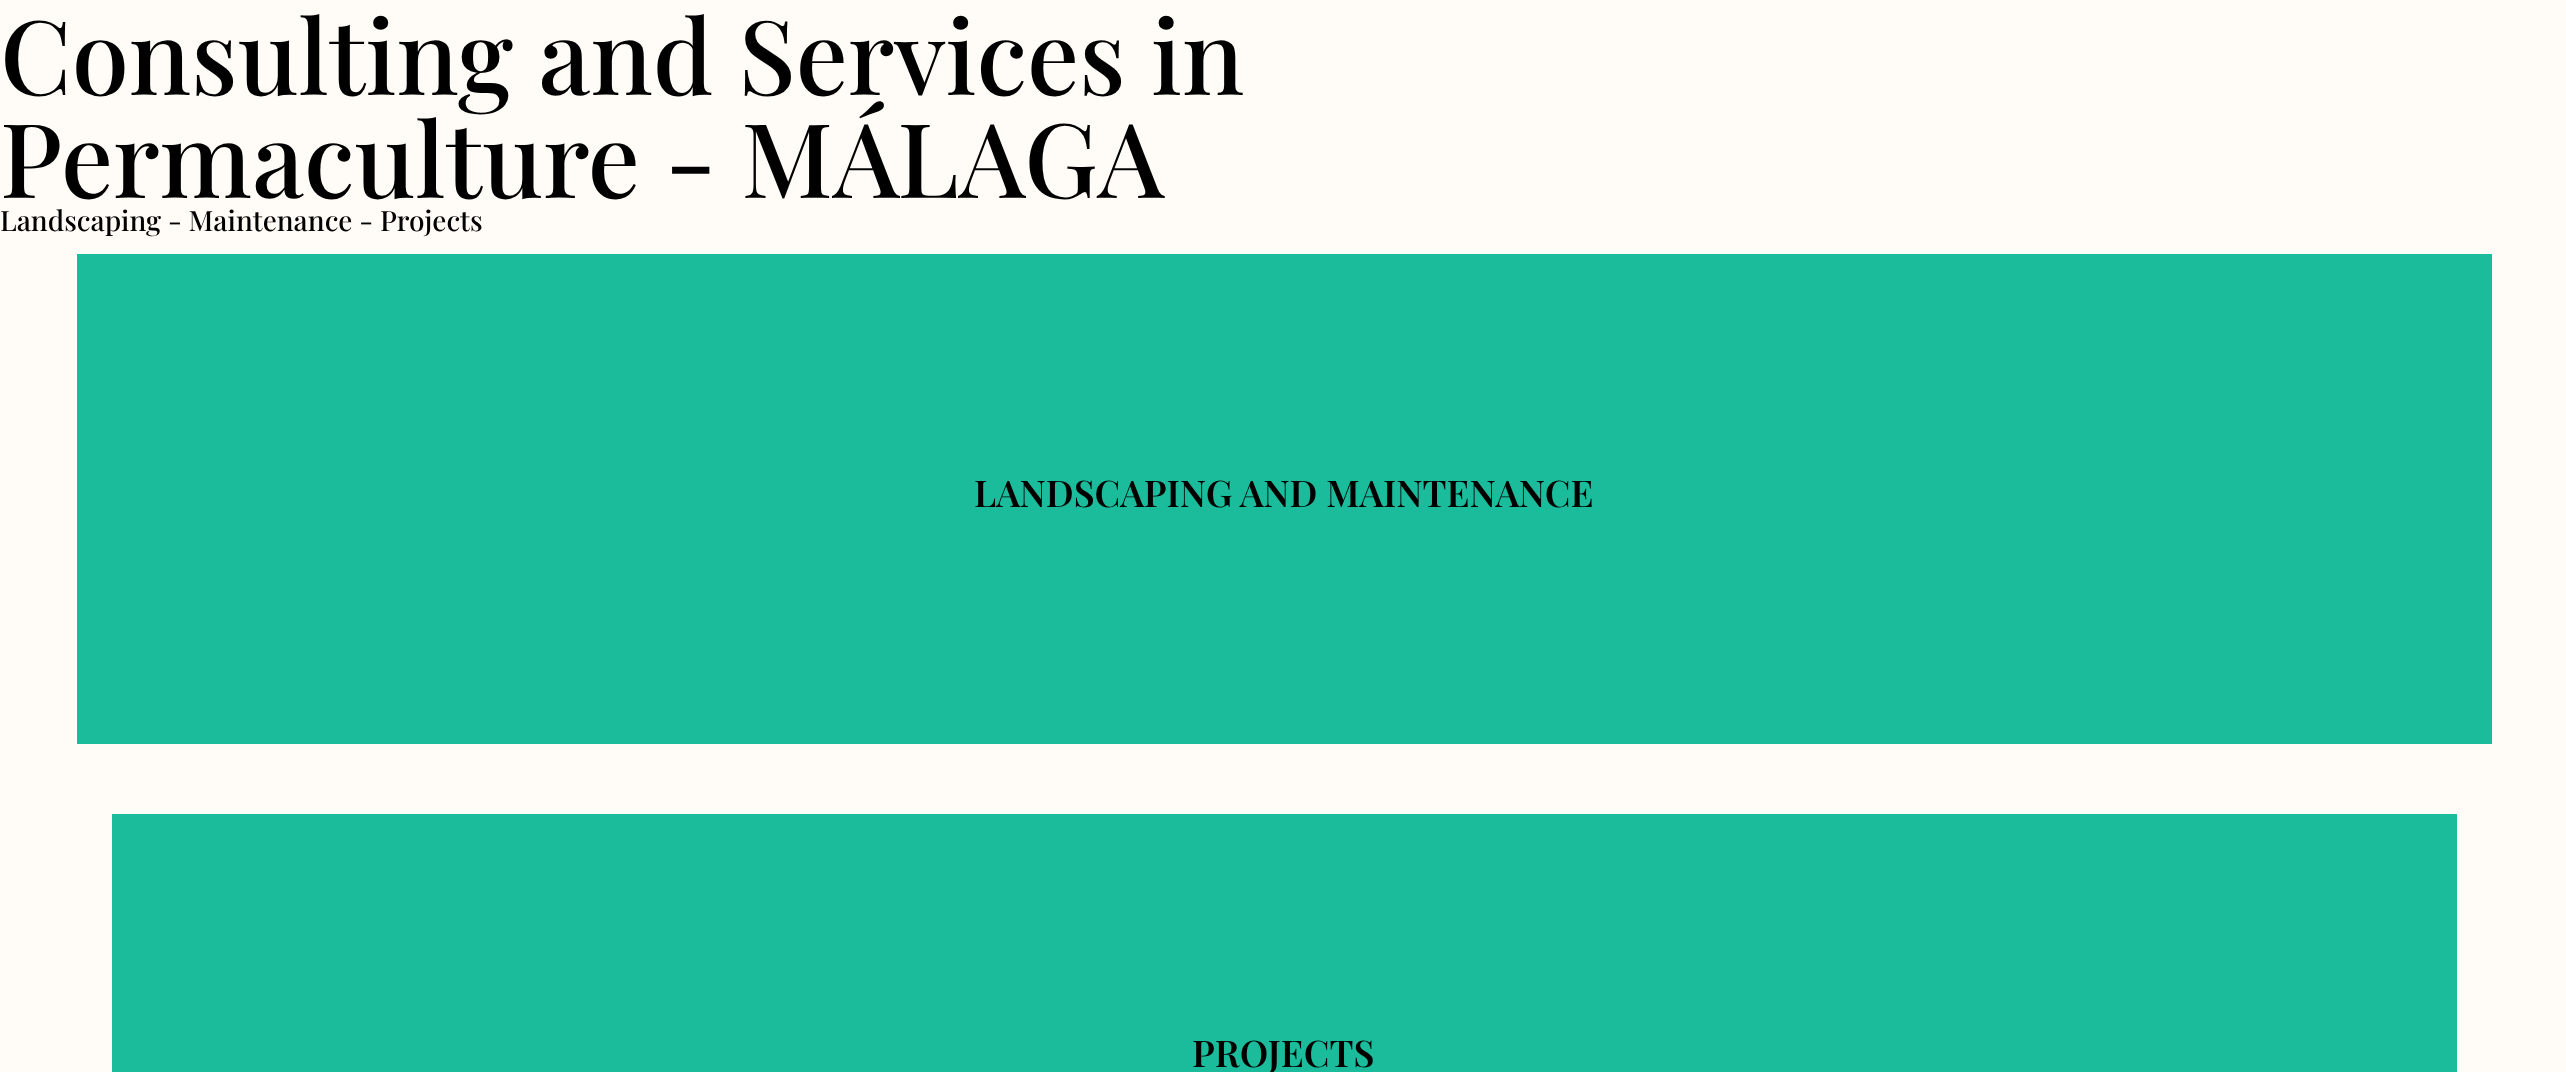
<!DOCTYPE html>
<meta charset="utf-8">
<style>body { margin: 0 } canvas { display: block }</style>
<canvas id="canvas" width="2566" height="1072"></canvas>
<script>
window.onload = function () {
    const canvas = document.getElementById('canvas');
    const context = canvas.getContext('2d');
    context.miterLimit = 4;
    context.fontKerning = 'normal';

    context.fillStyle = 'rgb(255, 251, 246)';
    context.fillRect(0, 0, 2566, 1072);
    context.fillStyle = 'rgb(26, 188, 156)';
    context.fillRect(77, 254, 2415, 490);
    context.fillRect(112, 814, 2345, 258);
    context.font = '500 103.25px Playfair Display';
    context.fillStyle = 'rgb(0, 0, 0)';
    context.fillText('Consulting and Services in', 0, 95);
    context.fillText('Permaculture - MÁLAGA', 0, 198);
    context.font = '500 28px Playfair Display';
    context.fillText('Landscaping - Maintenance - Projects', 0, 231);
    context.font = '600 36.75px Playfair Display';
    context.fillText('LANDSCAPING AND MAINTENANCE', 974, 507);
    context.fillText('PROJECTS', 1192, 1067);
};
</script>
